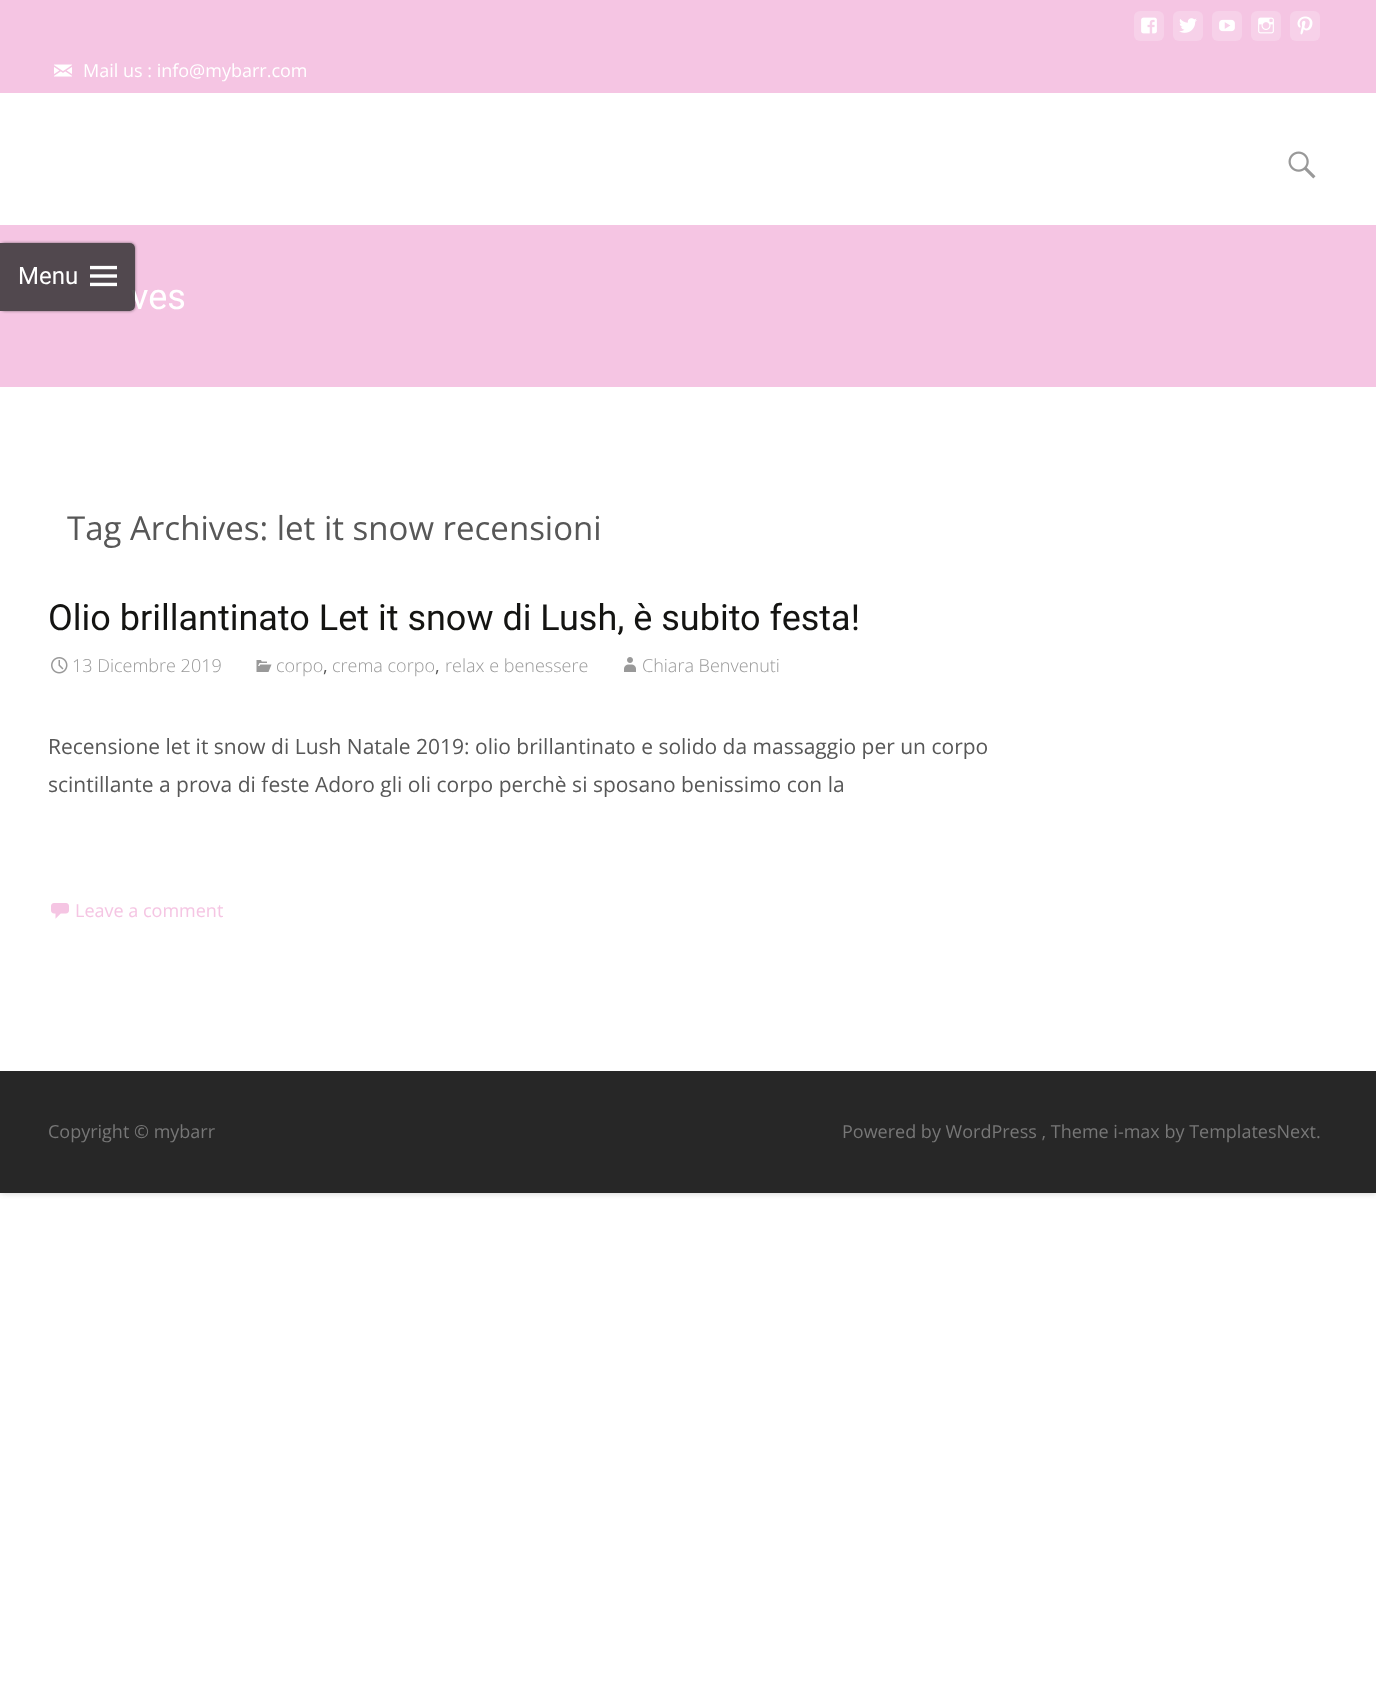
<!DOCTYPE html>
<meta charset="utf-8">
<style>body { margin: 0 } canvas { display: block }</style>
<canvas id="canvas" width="1376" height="1708"></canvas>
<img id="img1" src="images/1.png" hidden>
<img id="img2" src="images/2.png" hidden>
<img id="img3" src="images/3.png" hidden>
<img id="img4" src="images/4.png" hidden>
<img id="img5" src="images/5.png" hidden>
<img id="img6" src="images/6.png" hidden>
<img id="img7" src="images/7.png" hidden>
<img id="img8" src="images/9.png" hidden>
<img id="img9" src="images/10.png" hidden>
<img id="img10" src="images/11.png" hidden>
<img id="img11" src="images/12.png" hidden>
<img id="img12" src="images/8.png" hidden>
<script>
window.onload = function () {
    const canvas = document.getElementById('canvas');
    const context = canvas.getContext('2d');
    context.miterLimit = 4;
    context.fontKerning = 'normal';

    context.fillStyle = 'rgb(255, 255, 255)';
    context.fillRect(0, 0, 1376, 1708);
    context.fillStyle = 'rgba(0, 0, 0, 0.1)';
    context.filter = 'blur(3px)';
    context.beginPath();
    context.roundRect(0, 0, 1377, 1193, 3);
    context.fill();
    context.filter = 'none';
    context.filter = 'blur(3px)';
    context.beginPath();
    context.roundRect(0, 0, 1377, 1193, 3);
    context.fill();
    context.filter = 'none';
    context.fillStyle = 'rgb(255, 255, 255)';
    context.fillRect(0, 387, 1376, 684);
    context.fillStyle = 'rgb(245, 197, 227)';
    context.fillRect(0, 0, 1376, 93);
    context.fillStyle = 'rgb(247, 209, 233)';
    context.beginPath();
    context.roundRect(1134, 11, 30, 30, 6);
    context.fill();
    context.drawImage(document.getElementById('img1'), 1141, 17, 16, 17);
    context.beginPath();
    context.roundRect(1173, 11, 30, 30, 6);
    context.fill();
    context.drawImage(document.getElementById('img2'), 1179, 18, 18, 15);
    context.beginPath();
    context.roundRect(1212, 11, 30, 30, 6);
    context.fill();
    context.drawImage(document.getElementById('img3'), 1219, 19, 16, 13);
    context.beginPath();
    context.roundRect(1251, 11, 30, 30, 6);
    context.fill();
    context.drawImage(document.getElementById('img4'), 1258, 17, 16, 17);
    context.beginPath();
    context.roundRect(1290, 11, 30, 30, 6);
    context.fill();
    context.drawImage(document.getElementById('img5'), 1297, 16, 16, 19);
    context.drawImage(document.getElementById('img6'), 54, 64, 18, 13);
    context.fillStyle = 'rgb(255, 255, 255)';
    context.fillRect(0, 93, 1376, 132);
    context.drawImage(document.getElementById('img7'), 1288, 151, 28, 28);
    context.fillStyle = 'rgb(245, 197, 227)';
    context.fillRect(0, 225, 1376, 162);
    context.save();
    context.beginPath();
    context.moveTo(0, 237);
    context.lineTo(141, 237);
    context.lineTo(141, 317);
    context.lineTo(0, 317);
    context.closePath();
    context.moveTo(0, 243);
    context.lineTo(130, 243);
    context.bezierCurveTo(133, 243, 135, 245, 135, 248);
    context.lineTo(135, 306);
    context.bezierCurveTo(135, 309, 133, 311, 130, 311);
    context.lineTo(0, 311);
    context.closePath();
    context.clip('evenodd');
    context.fillStyle = 'rgba(50, 50, 50, 0.64)';
    context.filter = 'blur(1.5px)';
    context.beginPath();
    context.roundRect(0, 243, 135, 68, 5);
    context.fill();
    context.filter = 'none';
    context.restore();
    context.drawImage(document.getElementById('img8'), 51, 657, 17, 17);
    context.drawImage(document.getElementById('img9'), 256, 660, 16, 12);
    context.drawImage(document.getElementById('img10'), 624, 657, 12, 15);
    context.drawImage(document.getElementById('img11'), 51, 903, 18, 16);
    context.fillStyle = 'rgb(39, 39, 39)';
    context.fillRect(0, 1071, 1376, 122);
    context.font = '18px Open Sans';
    context.fillStyle = 'rgb(255, 255, 255)';
    context.fillText('Mail us : info@mybarr.com', 83, 77);
    context.font = '36px Roboto';
    context.fillText('ves', 131, 309);
    context.fillStyle = 'rgba(40, 40, 40, 0.8)';
    context.beginPath();
    context.roundRect(0, 243, 135, 68, [0, 5, 5, 0]);
    context.fill();
    context.drawImage(document.getElementById('img12'), 90, 265, 27, 22);
    context.font = '24px Roboto';
    context.fillStyle = 'rgb(255, 255, 255)';
    context.fillText('Menu', 18, 284);
    context.font = '33px Open Sans';
    context.fillStyle = 'rgb(87, 87, 87)';
    context.fillText('Tag Archives: let it snow recensioni', 67, 540);
    context.font = '36px Roboto';
    context.fillStyle = 'rgb(20, 20, 18)';
    context.fillText('Olio brillantinato Let it snow di Lush, è subito festa!', 48, 630);
    context.font = '300 18px Open Sans';
    context.fillStyle = 'rgb(153, 153, 153)';
    context.fillText('13 Dicembre 2019', 72, 672);
    context.fillText('corpo', 276, 672);
    context.font = '18px Open Sans';
    context.fillStyle = 'rgb(87, 87, 87)';
    context.fillText(',', 323, 672);
    context.font = '300 18px Open Sans';
    context.fillStyle = 'rgb(153, 153, 153)';
    context.fillText('crema corpo', 332, 672);
    context.font = '18px Open Sans';
    context.fillStyle = 'rgb(87, 87, 87)';
    context.fillText(',', 435, 672);
    context.font = '300 18px Open Sans';
    context.fillStyle = 'rgb(153, 153, 153)';
    context.fillText('relax e benessere', 445, 672);
    context.fillText('Chiara Benvenuti', 642, 672);
    context.font = '21px Open Sans';
    context.fillStyle = 'rgb(87, 87, 87)';
    context.fillText('Recensione let it snow di Lush Natale 2019: olio brillantinato e solido da massaggio per un corpo', 48, 754);
    context.fillText('scintillante a prova di feste Adoro gli oli corpo perchè si sposano benissimo con la', 48, 792);
    context.font = '18px Open Sans';
    context.fillStyle = 'rgb(245, 197, 227)';
    context.fillText('Leave a comment', 75, 917);
    context.fillStyle = 'rgb(119, 119, 119)';
    context.fillText('Copyright © mybarr', 48, 1138);
    context.fillText('Powered by WordPress , Theme i-max by TemplatesNext.', 842, 1138);
};
</script>
